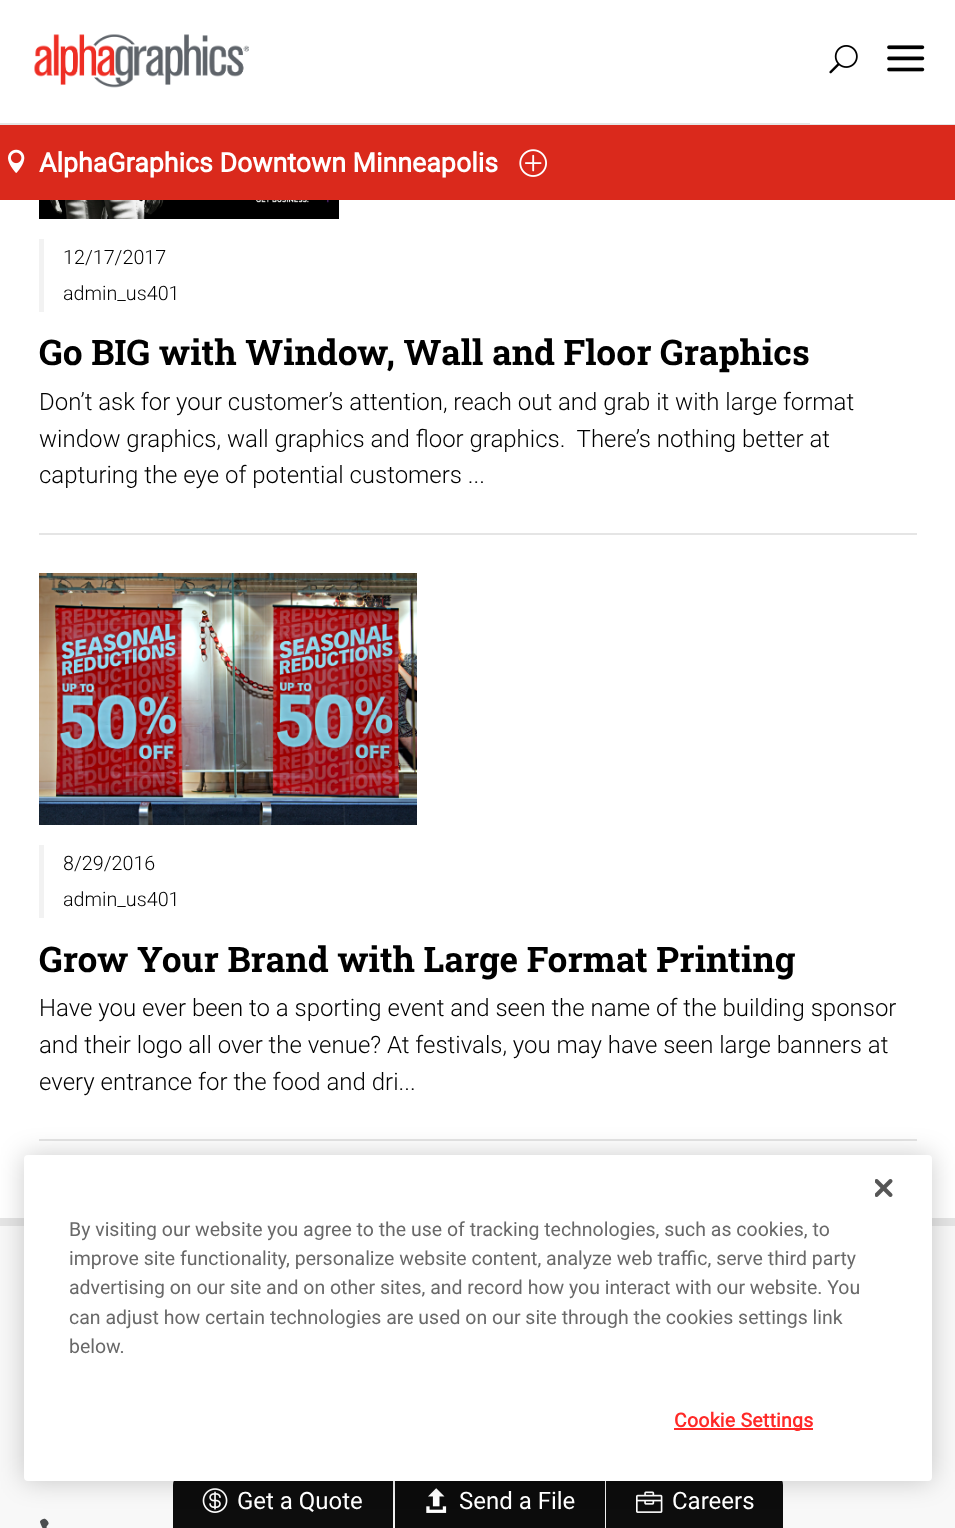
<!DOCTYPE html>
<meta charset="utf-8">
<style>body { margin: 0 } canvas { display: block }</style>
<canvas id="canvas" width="955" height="1528"></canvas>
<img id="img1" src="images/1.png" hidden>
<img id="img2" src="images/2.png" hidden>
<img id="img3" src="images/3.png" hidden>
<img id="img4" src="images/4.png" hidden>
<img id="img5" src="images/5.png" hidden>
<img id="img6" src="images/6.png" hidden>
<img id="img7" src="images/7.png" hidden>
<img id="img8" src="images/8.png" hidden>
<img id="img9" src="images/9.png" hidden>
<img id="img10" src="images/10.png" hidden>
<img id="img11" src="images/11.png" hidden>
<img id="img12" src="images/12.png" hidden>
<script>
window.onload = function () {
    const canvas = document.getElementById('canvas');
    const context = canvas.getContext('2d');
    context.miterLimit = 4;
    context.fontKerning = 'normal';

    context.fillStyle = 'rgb(255, 255, 255)';
    context.fillRect(0, 0, 955, 1528);
    context.fillStyle = 'rgb(218, 41, 28)';
    context.fillRect(0, 125, 955, 75);
    context.drawImage(document.getElementById('img1'), 8, 149, 17, 24);
    context.drawImage(document.getElementById('img2'), 519, 149, 28, 28);
    context.fillStyle = 'rgb(229, 229, 229)';
    context.fillRect(0, 123, 955, 2);
    context.drawImage(document.getElementById('img3'), 34, 34, 215, 54);
    context.fillStyle = 'rgb(255, 255, 255)';
    context.fillRect(810, 123, 145, 1);
    context.drawImage(document.getElementById('img4'), 829, 45, 29, 29);
    context.drawImage(document.getElementById('img5'), 887, 45, 38, 27);
    context.fillStyle = 'rgb(248, 248, 248)';
    context.fillRect(0, 1226, 955, 302);
    context.fillStyle = 'rgba(0, 0, 0, 0.95)';
    context.beginPath();
    context.moveTo(185, 1473);
    context.lineTo(395, 1473);
    context.lineTo(395, 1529);
    context.lineTo(173, 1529);
    context.lineTo(173, 1485);
    context.bezierCurveTo(173, 1478.5, 178.5, 1473, 185, 1473);
    context.closePath();
    context.fill();
    context.fillStyle = 'rgb(242, 242, 242)';
    context.fillRect(393, 1473, 2, 55);
    context.drawImage(document.getElementById('img6'), 202, 1488, 26, 25);
    context.fillStyle = 'rgb(12, 12, 12)';
    context.fillRect(395, 1481, 210, 47);
    context.fillStyle = 'rgb(242, 242, 242)';
    context.fillRect(605, 1473, 2, 55);
    context.drawImage(document.getElementById('img7'), 426, 1488, 21, 25);
    context.fillStyle = 'rgba(0, 0, 0, 0.95)';
    context.beginPath();
    context.moveTo(606, 1473);
    context.lineTo(771, 1473);
    context.bezierCurveTo(777.5, 1473, 783, 1478.5, 783, 1485);
    context.lineTo(783, 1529);
    context.lineTo(606, 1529);
    context.closePath();
    context.fill();
    context.drawImage(document.getElementById('img8'), 636, 1491, 27, 22);
    context.fillStyle = 'rgb(229, 229, 229)';
    context.fillRect(39, 533, 878, 2);
    context.drawImage(document.getElementById('img9'), 39, 200, 300, 19);
    context.fillStyle = 'rgb(242, 242, 242)';
    context.fillRect(39, 239, 5, 73);
    context.fillStyle = 'rgb(229, 229, 229)';
    context.fillRect(39, 1139, 878, 2);
    context.drawImage(document.getElementById('img10'), 39, 573, 378, 252);
    context.fillStyle = 'rgb(242, 242, 242)';
    context.fillRect(39, 845, 5, 73);
    context.fillStyle = 'rgb(229, 229, 229)';
    context.fillRect(0, 1218, 955, 8);
    context.drawImage(document.getElementById('img11'), 40, 1518, 9, 10);
    context.fillStyle = 'rgba(0, 0, 0, 0.2)';
    context.filter = 'blur(13.5px)';
    context.beginPath();
    context.roundRect(24, 1155, 908, 326, 4);
    context.fill();
    context.filter = 'none';
    context.fillStyle = 'rgb(255, 255, 255)';
    context.beginPath();
    context.roundRect(24, 1155, 908, 326, 4);
    context.fill();
    context.drawImage(document.getElementById('img12'), 875, 1179, 18, 18);
    context.fillStyle = 'rgb(255, 41, 39)';
    context.fillRect(674, 1428, 139, 2);
    context.font = 'bold 26.8px Roboto';
    context.fillStyle = 'rgb(255, 255, 255)';
    context.fillText('AlphaGraphics Downtown Minneapolis', 39, 172);
    context.font = '24px Roboto';
    context.fillText('Get a Quote', 237, 1509);
    context.fillText('Send a File', 459, 1509);
    context.fillText('Careers', 672, 1509);
    context.font = '300 19.75px Roboto';
    context.fillStyle = 'rgb(0, 0, 0)';
    context.fillText('12/17/2017', 63, 264);
    context.fillText('admin_us401', 63, 300);
    context.font = 'bold 35.25px Roboto Slab';
    context.fillText('Go BIG with Window, Wall and Floor Graphics', 39, 365);
    context.font = '300 24px Roboto';
    context.fillText('Don’t ask for your customer’s attention, reach out and grab it with large format', 39, 410);
    context.fillText('window graphics, wall graphics and floor graphics.  There’s nothing better at', 39, 447);
    context.fillText('capturing the eye of potential customers ...', 39, 483);
    context.font = '300 19.75px Roboto';
    context.fillText('8/29/2016', 63, 870);
    context.fillText('admin_us401', 63, 906);
    context.font = 'bold 35.25px Roboto Slab';
    context.fillText('Grow Your Brand with Large Format Printing', 39, 972);
    context.font = '300 24px Roboto';
    context.fillText('Have you ever been to a sporting event and seen the name of the building sponsor', 39, 1016);
    context.fillText('and their logo all over the venue? At festivals, you may have seen large banners at', 39, 1053);
    context.fillText('every entrance for the food and dri...', 39, 1090);
    context.font = '19.5px Roboto';
    context.fillStyle = 'rgb(105, 105, 105)';
    context.fillText('By visiting our website you agree to the use of tracking technologies, such as cookies, to', 69, 1236);
    context.fillText('improve site functionality, personalize website content, analyze web traffic, serve third party', 69, 1265);
    context.fillText('advertising on our site and on other sites, and record how you interact with our website. You', 69, 1294);
    context.fillText('can adjust how certain technologies are used on our site through the cookies settings link', 69, 1324);
    context.fillText('below.', 69, 1353);
    context.letterSpacing = '0.25px';
    context.font = 'bold 19.5px Roboto';
    context.fillStyle = 'rgb(255, 41, 39)';
    context.fillText('Cookie Settings', 674, 1427);
};
</script>
